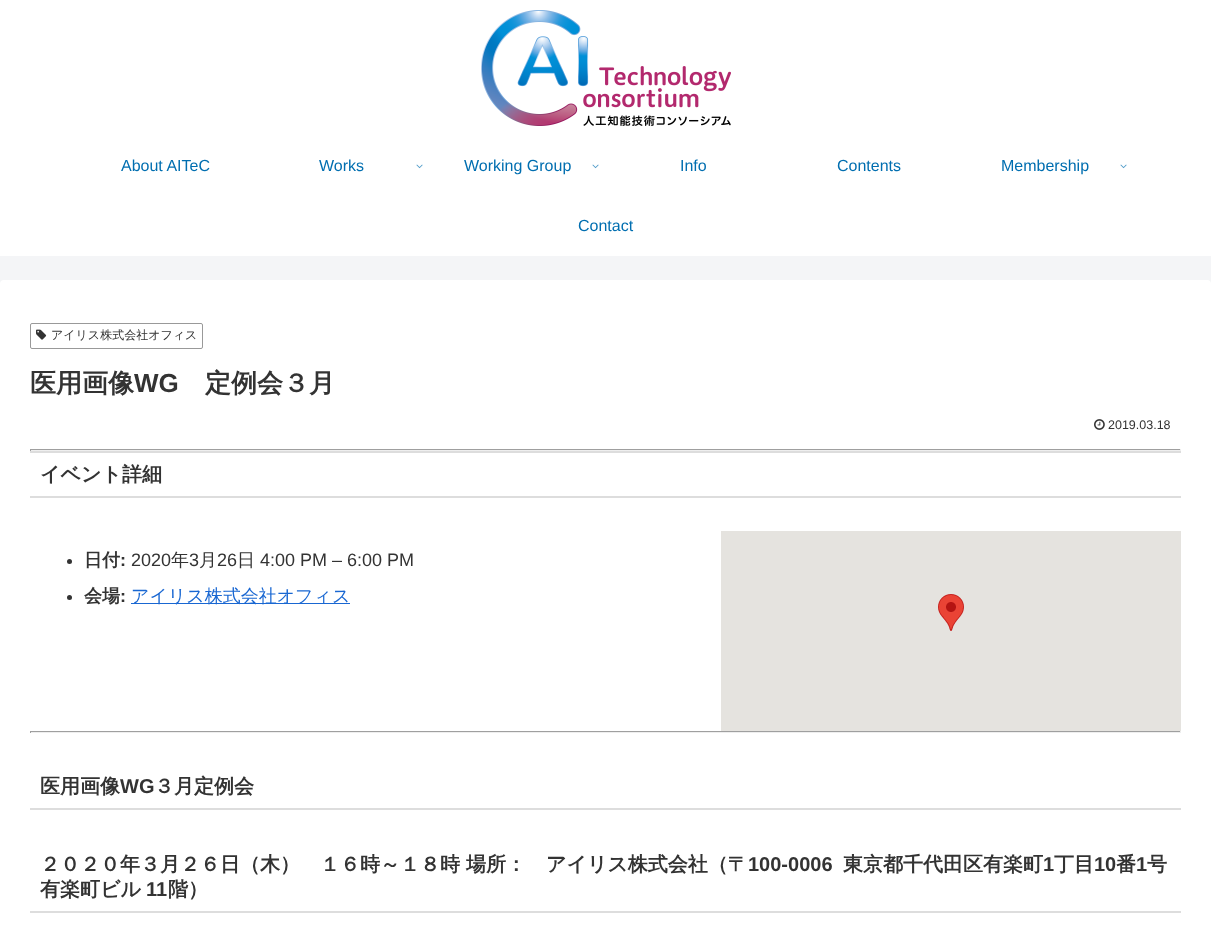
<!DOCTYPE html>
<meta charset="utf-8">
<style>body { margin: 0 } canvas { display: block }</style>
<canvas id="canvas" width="1211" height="950"></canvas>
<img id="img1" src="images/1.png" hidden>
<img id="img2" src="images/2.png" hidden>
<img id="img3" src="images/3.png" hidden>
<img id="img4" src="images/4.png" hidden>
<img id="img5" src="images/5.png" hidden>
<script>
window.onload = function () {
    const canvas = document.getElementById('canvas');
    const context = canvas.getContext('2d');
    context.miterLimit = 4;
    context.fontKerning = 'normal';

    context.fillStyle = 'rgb(244, 245, 247)';
    context.fillRect(0, 0, 1211, 950);
    context.fillStyle = 'rgb(255, 255, 255)';
    context.fillRect(0, 0, 1211, 256);
    context.drawImage(document.getElementById('img1'), 481, 10, 250, 116);
    context.drawImage(document.getElementById('img2'), 416, 164, 7, 5);
    context.drawImage(document.getElementById('img2'), 592, 164, 7, 5);
    context.drawImage(document.getElementById('img2'), 1120, 164, 7, 5);
    context.beginPath();
    context.roundRect(0, 280, 1211, 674, 4);
    context.fill();
    context.beginPath();
    context.roundRect(30.5, 323.5, 172, 25, 1.5);
    context.strokeStyle = 'rgb(153, 153, 153)';
    context.stroke();
    context.drawImage(document.getElementById('img3'), 36, 329, 11, 11);
    context.drawImage(document.getElementById('img4'), 1094, 419, 11, 11);
    context.fillStyle = 'rgb(159, 159, 159)';
    context.fillRect(30, 449, 1151, 1);
    context.fillStyle = 'rgb(238, 238, 238)';
    context.fillRect(1180, 449, 1, 2);
    context.fillRect(30, 450, 1151, 1);
    context.fillStyle = 'rgb(159, 159, 159)';
    context.fillRect(30, 449, 1, 2);
    context.fillStyle = 'rgb(221, 221, 221)';
    context.fillRect(30, 451, 1151, 2);
    context.fillRect(30, 496, 1151, 2);
    context.fillStyle = 'rgb(51, 51, 51)';
    context.beginPath();
    context.arc(69.5, 561.5, 2.5, 0, 2 * Math.PI);
    context.fill();
    context.beginPath();
    context.arc(69.5, 597.5, 2.5, 0, 2 * Math.PI);
    context.fill();
    context.fillStyle = 'rgb(25, 103, 210)';
    context.fillRect(131, 603, 219, 1);
    context.fillStyle = 'rgb(229, 227, 223)';
    context.fillRect(721, 531, 460, 200);
    context.drawImage(document.getElementById('img5'), 938, 594, 26, 37);
    context.fillStyle = 'rgb(159, 159, 159)';
    context.fillRect(30, 731, 1151, 1);
    context.fillStyle = 'rgb(238, 238, 238)';
    context.fillRect(1180, 731, 1, 2);
    context.fillRect(30, 732, 1151, 1);
    context.fillStyle = 'rgb(159, 159, 159)';
    context.fillRect(30, 731, 1, 2);
    context.fillStyle = 'rgb(221, 221, 221)';
    context.fillRect(30, 808, 1151, 2);
    context.fillRect(30, 911, 1151, 2);
    context.font = '16px Liberation Sans';
    context.fillStyle = 'rgb(0, 110, 176)';
    context.fillText('About AITeC', 121, 171);
    context.fillText('Works', 319, 171);
    context.fillText('Working Group', 464, 171);
    context.fillText('Info', 680, 171);
    context.fillText('Contents', 837, 171);
    context.fillText('Membership', 1001, 171);
    context.fillText('Contact', 578, 231);
    context.font = '500 12px WenQuanYi Zen Hei';
    context.fillStyle = 'rgb(51, 51, 51)';
    context.fillText('アイリス株式会社オフィス', 51, 339);
    context.font = 'bold 26px WenQuanYi Zen Hei';
    context.fillText('医用画像', 30, 392);
    context.font = 'bold 26px Liberation Sans';
    context.fillText('WG', 134, 392);
    context.font = 'bold 26px WenQuanYi Zen Hei';
    context.fillText('定例会３月', 205, 392);
    context.font = '12.5px Liberation Sans';
    context.fillText('2019.03.18', 1108, 429);
    context.font = 'bold 20px WenQuanYi Zen Hei';
    context.fillText('イベント詳細', 40, 481);
    context.font = 'bold 18px WenQuanYi Zen Hei';
    context.fillText('日付', 84, 566);
    context.font = 'bold 18px Liberation Sans';
    context.fillText(':', 120, 566);
    context.font = '18px Liberation Sans';
    context.fillText('2020', 131, 566);
    context.font = '500 18px WenQuanYi Zen Hei';
    context.fillText('年', 171, 566);
    context.font = '18px Liberation Sans';
    context.fillText('3', 189, 566);
    context.font = '500 18px WenQuanYi Zen Hei';
    context.fillText('月', 199, 566);
    context.font = '18px Liberation Sans';
    context.fillText('26', 217, 566);
    context.font = '500 18px WenQuanYi Zen Hei';
    context.fillText('日', 237, 566);
    context.font = '18px Liberation Sans';
    context.fillText('4:00 PM – 6:00 PM', 260, 566);
    context.font = 'bold 18px WenQuanYi Zen Hei';
    context.fillText('会場', 84, 602);
    context.font = 'bold 18px Liberation Sans';
    context.fillText(':', 120, 602);
    context.font = '500 18px WenQuanYi Zen Hei';
    context.fillStyle = 'rgb(25, 103, 210)';
    context.fillText('アイリス株式会社オフィス', 131, 602);
    context.font = 'bold 20px WenQuanYi Zen Hei';
    context.fillStyle = 'rgb(51, 51, 51)';
    context.fillText('医用画像', 40, 793);
    context.font = 'bold 20px Liberation Sans';
    context.fillText('WG', 120, 793);
    context.font = 'bold 20px WenQuanYi Zen Hei';
    context.fillText('３月定例会', 154, 793);
    context.fillText('２０２０年３月２６日（木）　１６時～１８時 場所：　アイリス株式会社（〒', 40, 871);
    context.font = 'bold 20px Liberation Sans';
    context.fillText('100-0006', 748, 871);
    context.font = 'bold 20px WenQuanYi Zen Hei';
    context.fillText('東京都千代田区有楽町', 843, 871);
    context.font = 'bold 20px Liberation Sans';
    context.fillText('1', 1043, 871);
    context.font = 'bold 20px WenQuanYi Zen Hei';
    context.fillText('丁目', 1054, 871);
    context.font = 'bold 20px Liberation Sans';
    context.fillText('10', 1094, 871);
    context.font = 'bold 20px WenQuanYi Zen Hei';
    context.fillText('番', 1116, 871);
    context.font = 'bold 20px Liberation Sans';
    context.fillText('1', 1136, 871);
    context.font = 'bold 20px WenQuanYi Zen Hei';
    context.fillText('号', 1147, 871);
    context.fillText('有楽町ビル', 40, 896);
    context.font = 'bold 20px Liberation Sans';
    context.fillText('11', 146, 896);
    context.font = 'bold 20px WenQuanYi Zen Hei';
    context.fillText('階）', 168, 896);
};
</script>
